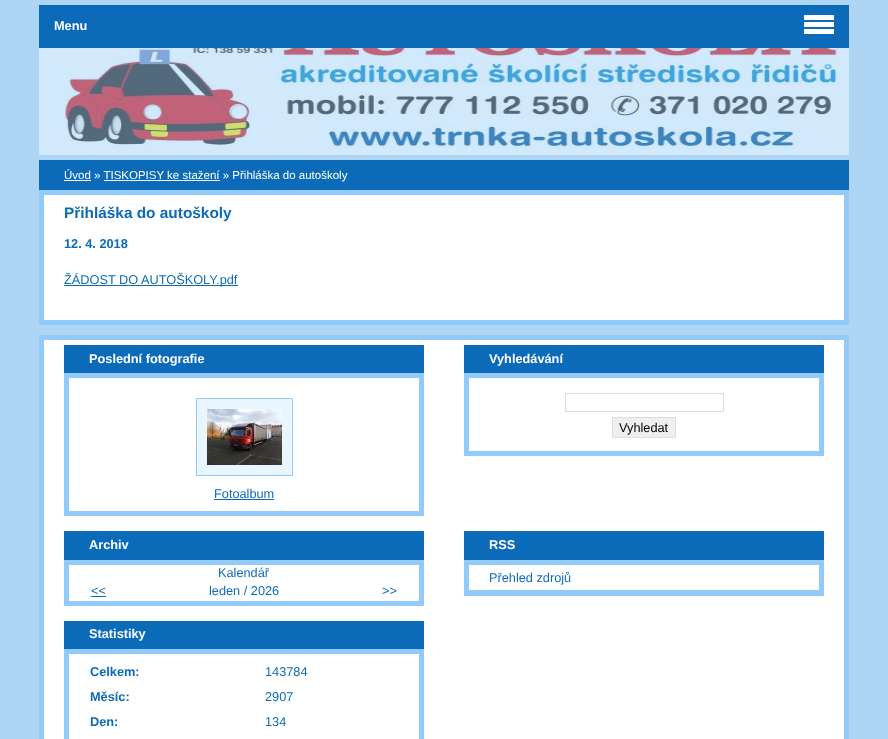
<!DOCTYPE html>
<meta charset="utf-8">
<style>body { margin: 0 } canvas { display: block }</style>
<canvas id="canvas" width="888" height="739"></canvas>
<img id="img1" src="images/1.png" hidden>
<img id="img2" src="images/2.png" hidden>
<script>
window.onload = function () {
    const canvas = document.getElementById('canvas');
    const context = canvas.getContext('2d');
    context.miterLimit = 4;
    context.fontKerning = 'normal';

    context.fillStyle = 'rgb(175, 213, 244)';
    context.fillRect(0, 0, 888, 739);
    context.fillStyle = 'rgb(255, 255, 255)';
    context.beginPath();
    context.rect(41.5, 337.5, 805, 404);
    context.fill();
    context.strokeStyle = 'rgb(146, 203, 249)';
    context.lineWidth = 5;
    context.stroke();
    context.fillStyle = 'rgb(12, 107, 184)';
    context.fillRect(39, 5, 810, 43);
    context.fillRect(64, 345, 360, 28);
    context.strokeRect(66.5, 375.5, 355, 138);
    context.fillStyle = 'rgb(233, 246, 255)';
    context.beginPath();
    context.rect(196.5, 398.5, 96, 77);
    context.fill();
    context.lineWidth = 1;
    context.stroke();
    context.drawImage(document.getElementById('img1'), 207, 409, 75, 56);
    context.fillStyle = 'rgb(12, 107, 184)';
    context.fillRect(214, 499, 60, 1);
    context.fillRect(464, 345, 360, 28);
    context.lineWidth = 5;
    context.strokeRect(466.5, 375.5, 355, 78);
    context.strokeStyle = 'rgb(221, 221, 221)';
    context.lineWidth = 1;
    context.strokeRect(565.5, 393.5, 158, 18);
    context.fillStyle = 'rgb(239, 239, 239)';
    context.beginPath();
    context.rect(612.5, 417.5, 63, 20);
    context.fill();
    context.stroke();
    context.fillStyle = 'rgb(12, 107, 184)';
    context.fillRect(64, 531, 360, 29);
    context.strokeStyle = 'rgb(146, 203, 249)';
    context.lineWidth = 5;
    context.strokeRect(66.5, 562.5, 355, 41);
    context.fillRect(91, 596, 15, 1);
    context.fillRect(464, 531, 360, 29);
    context.strokeRect(466.5, 562.5, 355, 31);
    context.fillStyle = 'rgb(146, 203, 249)';
    context.fillRect(469, 590, 350, 1);
    context.fillStyle = 'rgb(12, 107, 184)';
    context.fillRect(64, 621, 360, 28);
    context.strokeRect(66.5, 651.5, 355, 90);
    context.fillRect(39, 160, 810, 30);
    context.fillStyle = 'rgb(255, 255, 255)';
    context.fillRect(64, 180, 27, 1);
    context.fillRect(104, 180, 116, 1);
    context.beginPath();
    context.rect(41.5, 192.5, 805, 130);
    context.fill();
    context.stroke();
    context.fillStyle = 'rgb(12, 107, 184)';
    context.fillRect(64, 285, 174, 1);
    context.fillStyle = 'rgb(255, 255, 255)';
    context.fillRect(804, 15, 30, 5);
    context.fillRect(804, 22, 30, 5);
    context.fillRect(804, 29, 30, 5);
    context.drawImage(document.getElementById('img2'), 39, 48, 810, 107);
    context.fillStyle = 'rgba(146, 203, 249, 0.4)';
    context.fillRect(39, 48, 810, 107);
    context.font = 'bold 12.75px Liberation Sans';
    context.fillStyle = 'rgb(255, 255, 255)';
    context.fillText('Menu', 54, 30);
    context.fillText('Poslední fotografie', 89, 363);
    context.font = '12.75px Liberation Sans';
    context.fillStyle = 'rgb(12, 107, 184)';
    context.fillText('Fotoalbum', 214, 498);
    context.font = 'bold 12.75px Liberation Sans';
    context.fillStyle = 'rgb(255, 255, 255)';
    context.fillText('Vyhledávání', 489, 363);
    context.font = '12.75px Liberation Sans';
    context.fillStyle = 'rgb(0, 0, 0)';
    context.fillText('Vyhledat', 619, 432);
    context.font = 'bold 12.75px Liberation Sans';
    context.fillStyle = 'rgb(255, 255, 255)';
    context.fillText('Archiv', 89, 549);
    context.font = '12.75px Liberation Sans';
    context.fillStyle = 'rgb(12, 107, 184)';
    context.fillText('Kalendář', 218, 577);
    context.fillText('<<', 91, 595);
    context.fillText('leden / 2026', 209, 595);
    context.fillText('>>', 382, 595);
    context.font = 'bold 12.75px Liberation Sans';
    context.fillStyle = 'rgb(255, 255, 255)';
    context.fillText('RSS', 489, 549);
    context.font = '12.75px Liberation Sans';
    context.fillStyle = 'rgb(12, 107, 184)';
    context.fillText('Přehled zdrojů', 489, 582);
    context.font = 'bold 12.75px Liberation Sans';
    context.fillStyle = 'rgb(255, 255, 255)';
    context.fillText('Statistiky', 89, 638);
    context.fillStyle = 'rgb(12, 107, 184)';
    context.fillText('Celkem:', 90, 676);
    context.font = '12.75px Liberation Sans';
    context.fillText('143784', 265, 676);
    context.font = 'bold 12.75px Liberation Sans';
    context.fillText('Měsíc:', 90, 701);
    context.font = '12.75px Liberation Sans';
    context.fillText('2907', 265, 701);
    context.font = 'bold 12.75px Liberation Sans';
    context.fillText('Den:', 90, 726);
    context.font = '12.75px Liberation Sans';
    context.fillText('134', 265, 726);
    context.font = '11.5px Liberation Sans';
    context.fillStyle = 'rgb(255, 255, 255)';
    context.fillText('Úvod » TISKOPISY ke stažení » Přihláška do autoškoly', 64, 179);
    context.font = 'bold 15.4px Liberation Sans';
    context.fillStyle = 'rgb(12, 107, 184)';
    context.fillText('Přihláška do autoškoly', 64, 218);
    context.font = 'bold 12.75px Liberation Sans';
    context.fillText('12. 4. 2018', 64, 248);
    context.font = '12.75px Liberation Sans';
    context.fillText('ŽÁDOST DO AUTOŠKOLY.pdf', 64, 284);
};
</script>
